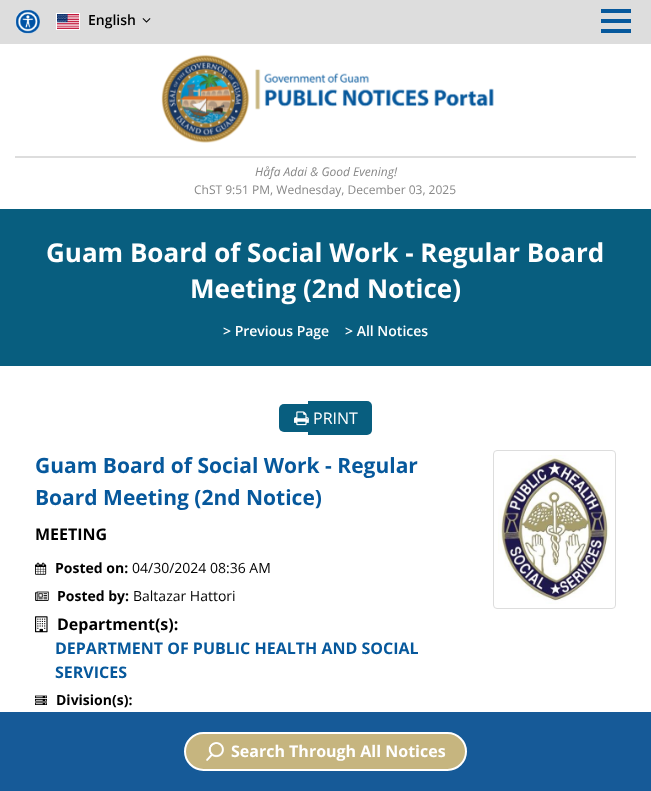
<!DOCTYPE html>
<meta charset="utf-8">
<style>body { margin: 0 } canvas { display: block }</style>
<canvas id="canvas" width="651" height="791"></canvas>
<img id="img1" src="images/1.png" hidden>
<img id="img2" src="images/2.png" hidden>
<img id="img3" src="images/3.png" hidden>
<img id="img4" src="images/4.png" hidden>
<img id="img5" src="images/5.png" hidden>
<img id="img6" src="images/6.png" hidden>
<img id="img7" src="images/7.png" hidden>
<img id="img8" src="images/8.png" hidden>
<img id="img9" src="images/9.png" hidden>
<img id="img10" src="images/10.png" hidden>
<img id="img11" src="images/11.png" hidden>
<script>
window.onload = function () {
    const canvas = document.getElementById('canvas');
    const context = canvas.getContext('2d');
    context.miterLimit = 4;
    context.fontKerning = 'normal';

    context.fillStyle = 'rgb(255, 255, 255)';
    context.fillRect(0, 0, 651, 791);
    context.fillStyle = 'rgb(221, 221, 221)';
    context.fillRect(0, 0, 651, 44);
    context.drawImage(document.getElementById('img1'), 15, 9, 25, 25);
    context.strokeStyle = 'rgb(255, 255, 255)';
    context.strokeRect(56.5, 13.5, 23, 16);
    context.drawImage(document.getElementById('img2'), 57, 14, 22, 15);
    context.drawImage(document.getElementById('img3'), 142, 18, 9, 5);
    context.fillStyle = 'rgb(6, 88, 156)';
    context.fillRect(601, 9, 30, 4);
    context.fillRect(601, 19, 30, 4);
    context.fillRect(601, 29, 30, 4);
    context.drawImage(document.getElementById('img4'), 161, 54, 333, 89);
    context.fillStyle = 'rgb(221, 221, 221)';
    context.fillRect(15, 156, 621, 2);
    context.fillStyle = 'rgb(8, 94, 127)';
    context.fillRect(0, 209, 651, 157);
    context.beginPath();
    context.roundRect(279, 404, 29, 28, [5, 0, 0, 5]);
    context.fill();
    context.fillRect(308, 401, 5, 34);
    context.beginPath();
    context.roundRect(313, 401, 59, 34, [0, 5, 5, 0]);
    context.fill();
    context.drawImage(document.getElementById('img5'), 294, 411, 15, 15);
    context.drawImage(document.getElementById('img6'), 35, 562, 12, 13);
    context.drawImage(document.getElementById('img7'), 35, 591, 14, 10);
    context.drawImage(document.getElementById('img8'), 35, 616, 13, 17);
    context.drawImage(document.getElementById('img9'), 35, 695, 12, 10);
    context.beginPath();
    context.roundRect(493.5, 450.5, 122, 158, 3.5);
    context.strokeStyle = 'rgb(221, 221, 221)';
    context.stroke();
    context.drawImage(document.getElementById('img10'), 498, 455, 112, 149);
    context.fillStyle = 'rgb(22, 90, 152)';
    context.fillRect(0, 712, 651, 79);
    context.fillStyle = 'rgb(198, 181, 127)';
    context.beginPath();
    context.roundRect(185, 733, 281, 37, 18.5);
    context.fill();
    context.strokeStyle = 'rgb(255, 255, 255)';
    context.lineWidth = 2;
    context.stroke();
    context.drawImage(document.getElementById('img11'), 206, 742, 18, 19);
    context.font = '600 14px Open Sans';
    context.fillStyle = 'rgb(0, 0, 0)';
    context.fillText('English', 88, 25);
    context.font = 'italic 12px Open Sans';
    context.fillStyle = 'rgb(136, 136, 136)';
    context.fillText('Håfa Adai & Good Evening!', 255, 176);
    context.font = '12px Open Sans';
    context.fillText('ChST 9:51 PM, Wednesday, December 03, 2025', 194, 194);
    context.font = 'bold 26px Open Sans';
    context.fillStyle = 'rgb(255, 255, 255)';
    context.fillText('Guam Board of Social Work - Regular Board', 46, 262);
    context.fillText('Meeting (2nd Notice)', 190, 298);
    context.font = '600 14px Open Sans';
    context.fillText('> Previous Page', 223, 336);
    context.fillText('> All Notices', 345, 336);
    context.font = '16px Open Sans';
    context.fillText('PRINT', 313, 424);
    context.font = 'bold 21px Open Sans';
    context.fillStyle = 'rgb(6, 88, 156)';
    context.fillText('Guam Board of Social Work - Regular', 35, 473);
    context.fillText('Board Meeting (2nd Notice)', 35, 505);
    context.font = 'bold 16px Open Sans';
    context.fillStyle = 'rgb(0, 0, 0)';
    context.fillText('MEETING', 35, 540);
    context.font = 'bold 14px Open Sans';
    context.fillText('Posted on:', 55, 573);
    context.font = '14px Open Sans';
    context.fillText('04/30/2024 08:36 AM', 132, 573);
    context.font = 'bold 14px Open Sans';
    context.fillText('Posted by:', 57, 601);
    context.font = '14px Open Sans';
    context.fillText('Baltazar Hattori', 133, 601);
    context.font = 'bold 16px Open Sans';
    context.fillText('Department(s):', 57, 630);
    context.fillStyle = 'rgb(6, 88, 156)';
    context.fillText('DEPARTMENT OF PUBLIC HEALTH AND SOCIAL', 55, 654);
    context.fillText('SERVICES', 55, 678);
    context.font = 'bold 14px Open Sans';
    context.fillStyle = 'rgb(0, 0, 0)';
    context.fillText('Division(s):', 56, 705);
    context.font = 'bold 16px Open Sans';
    context.fillStyle = 'rgb(255, 255, 255)';
    context.fillText('Search Through All Notices', 231, 757);
};
</script>
